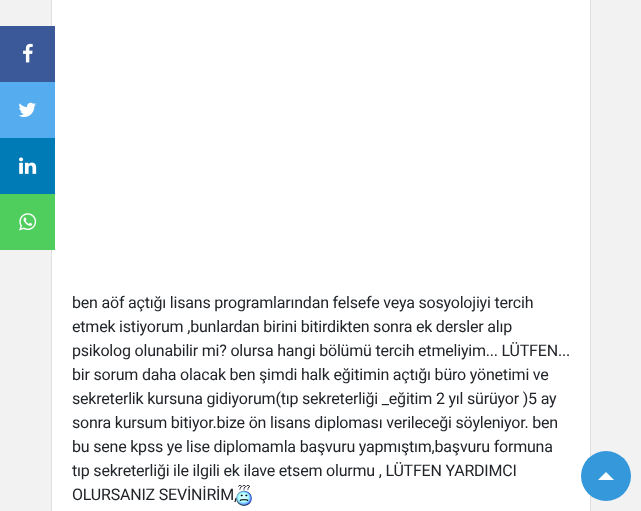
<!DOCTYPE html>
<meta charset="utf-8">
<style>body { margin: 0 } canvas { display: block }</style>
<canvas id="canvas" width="641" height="511"></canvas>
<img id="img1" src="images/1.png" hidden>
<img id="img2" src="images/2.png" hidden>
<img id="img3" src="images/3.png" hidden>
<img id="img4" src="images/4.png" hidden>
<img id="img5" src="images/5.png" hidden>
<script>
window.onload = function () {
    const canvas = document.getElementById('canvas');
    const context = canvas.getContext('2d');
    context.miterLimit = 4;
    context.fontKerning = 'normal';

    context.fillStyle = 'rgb(242, 242, 242)';
    context.fillRect(0, 0, 641, 511);
    context.fillStyle = 'rgb(255, 255, 255)';
    context.beginPath();
    context.rect(51.5, -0.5, 539, 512);
    context.fill();
    context.strokeStyle = 'rgb(223, 223, 223)';
    context.stroke();
    context.fillStyle = 'rgb(59, 89, 152)';
    context.fillRect(0, 26, 55, 56);
    context.drawImage(document.getElementById('img1'), 23, 43, 10, 20);
    context.fillStyle = 'rgb(85, 172, 238)';
    context.fillRect(0, 82, 55, 56);
    context.drawImage(document.getElementById('img2'), 18, 102, 18, 15);
    context.fillStyle = 'rgb(0, 123, 181)';
    context.fillRect(0, 138, 55, 56);
    context.drawImage(document.getElementById('img3'), 19, 157, 18, 17);
    context.fillStyle = 'rgb(79, 206, 93)';
    context.fillRect(0, 194, 55, 56);
    context.drawImage(document.getElementById('img4'), 19, 213, 18, 18);
    context.drawImage(document.getElementById('img5'), 236, 485, 16, 21);
    context.fillStyle = 'rgb(52, 152, 219)';
    context.beginPath();
    context.arc(606, 476, 25, 0, 2 * Math.PI);
    context.fill();
    context.fillStyle = 'rgb(255, 255, 255)';
    context.beginPath();
    context.moveTo(614, 480);
    context.lineTo(598, 480);
    context.lineTo(606, 472);
    context.closePath();
    context.fill();
    context.letterSpacing = '-0.2px';
    context.font = '16px Roboto';
    context.fillStyle = 'rgb(33, 37, 41)';
    context.fillText('ben aöf açtığı lisans programlarından felsefe veya sosyolojiyi tercih', 72, 308);
    context.fillText('etmek istiyorum ,bunlardan birini bitirdikten sonra ek dersler alıp', 72, 332);
    context.fillText('psikolog olunabilir mi? olursa hangi bölümü tercih etmeliyim... LÜTFEN...', 72, 356);
    context.fillText('bir sorum daha olacak ben şimdi halk eğitimin açtığı büro yönetimi ve', 72, 380);
    context.fillText('sekreterlik kursuna gidiyorum(tıp sekreterliği _eğitim 2 yıl sürüyor )5 ay', 72, 404);
    context.fillText('sonra kursum bitiyor.bize ön lisans diploması verileceği söyleniyor. ben', 72, 428);
    context.fillText('bu sene kpss ye lise diplomamla başvuru yapmıştım,başvuru formuna', 72, 452);
    context.fillText('tıp sekreterliği ile ilgili ek ilave etsem olurmu , LÜTFEN YARDIMCI', 72, 476);
    context.fillText('OLURSANIZ SEVİNİRİM,', 72, 500);
};
</script>
